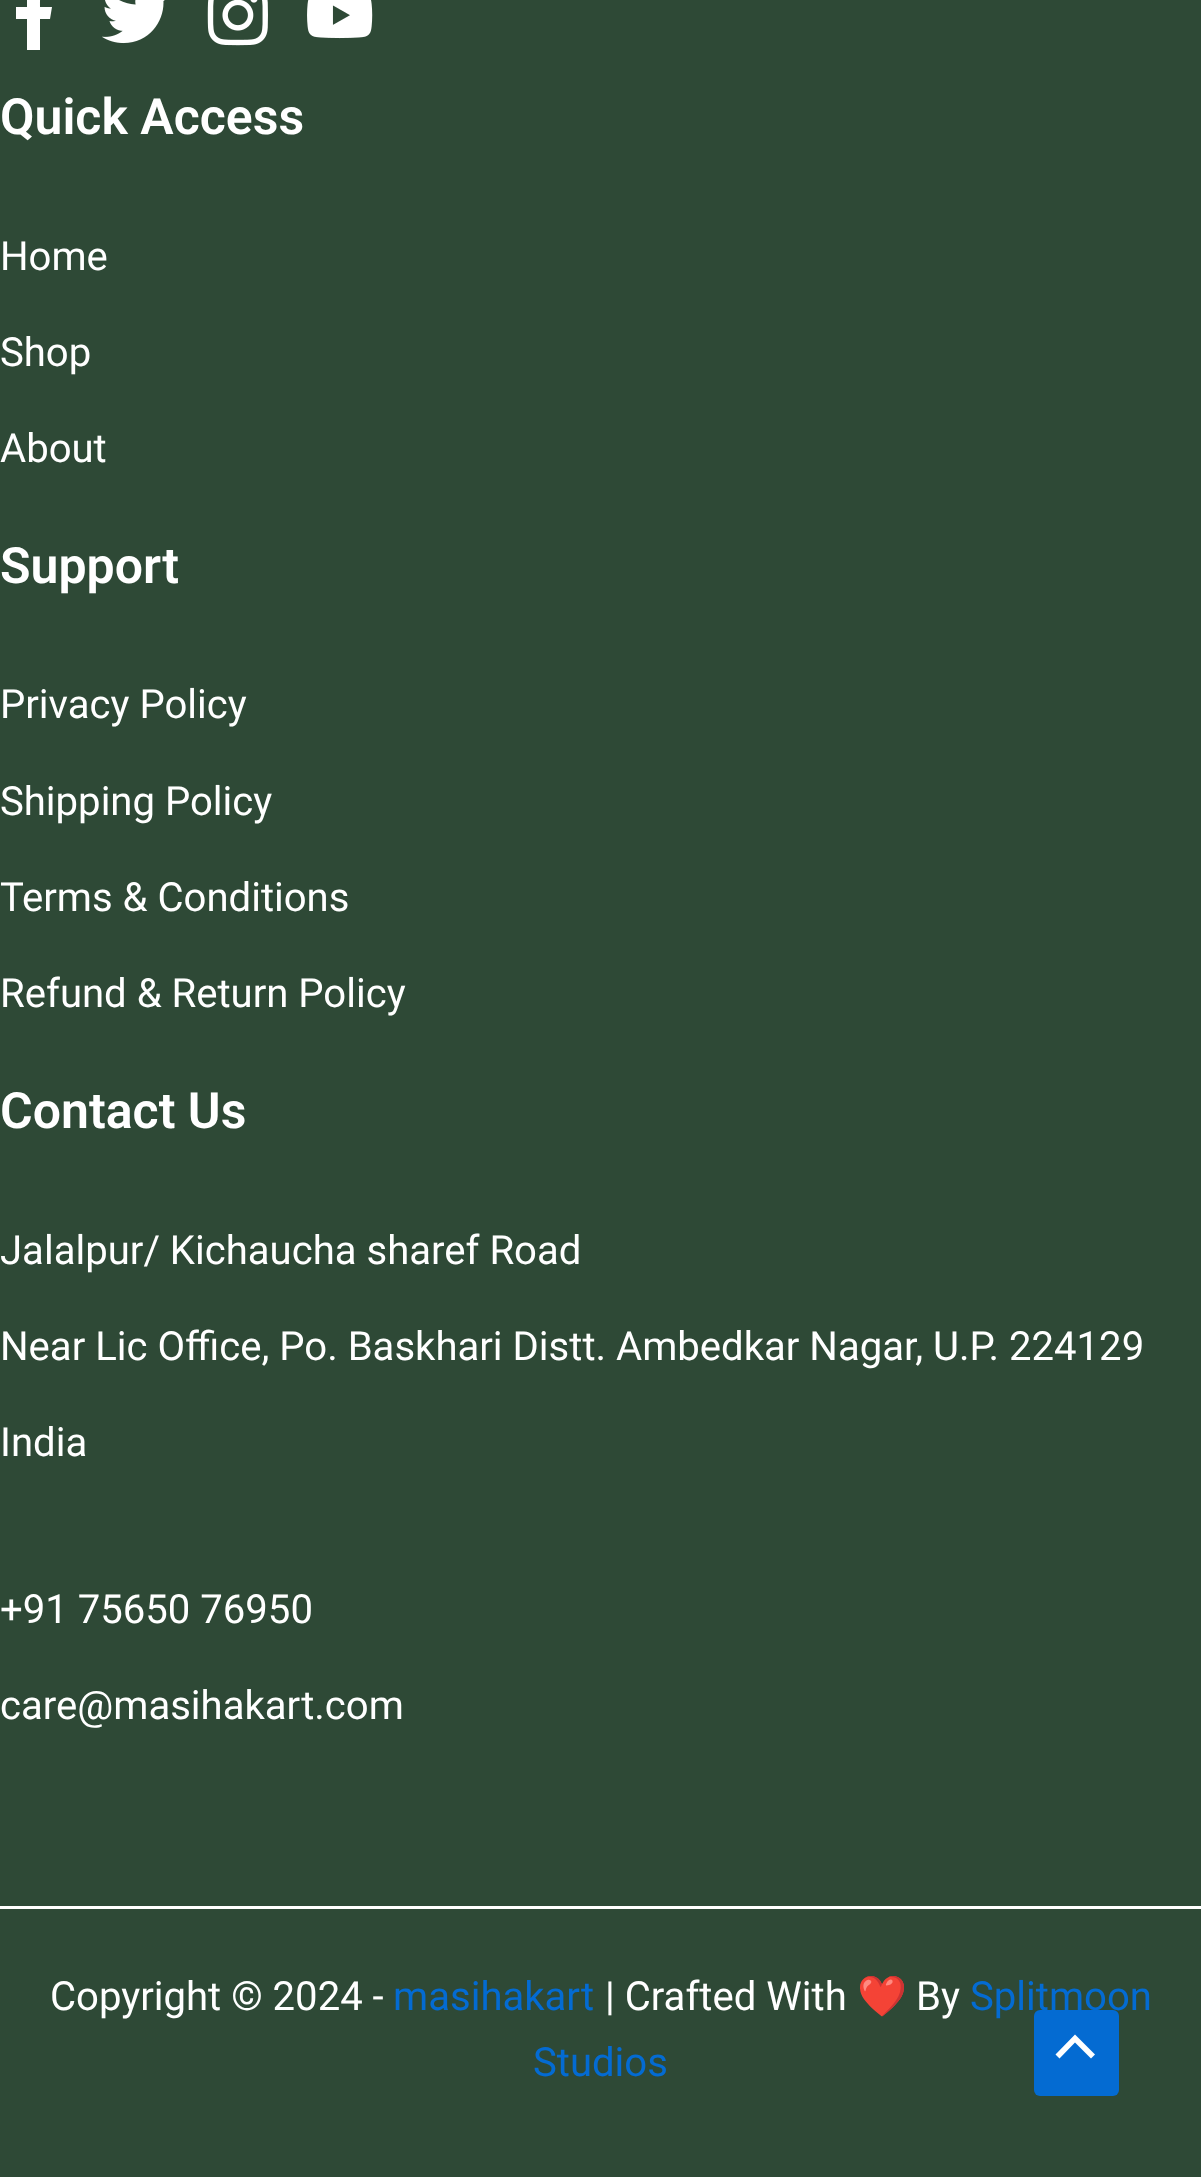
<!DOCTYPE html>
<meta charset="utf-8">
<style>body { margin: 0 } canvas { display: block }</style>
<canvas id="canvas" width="1201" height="2177"></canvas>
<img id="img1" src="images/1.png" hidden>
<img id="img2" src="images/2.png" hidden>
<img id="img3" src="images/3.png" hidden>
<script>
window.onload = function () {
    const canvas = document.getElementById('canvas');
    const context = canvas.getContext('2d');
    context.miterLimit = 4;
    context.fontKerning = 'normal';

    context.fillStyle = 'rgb(255, 255, 255)';
    context.fillRect(0, 0, 1201, 2177);
    context.fillStyle = 'rgb(46, 73, 54)';
    context.fillRect(0, 0, 1201, 1906);
    context.fillStyle = 'rgb(255, 255, 255)';
    context.beginPath();
    context.moveTo(50, 19);
    context.lineTo(52, 7);
    context.lineTo(40, 7);
    context.bezierCurveTo(40, -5, 39, -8, 53, -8);
    context.lineTo(53, -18);
    context.bezierCurveTo(42, -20, 29, -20, 27, -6);
    context.lineTo(27, 7);
    context.lineTo(16, 7);
    context.lineTo(16, 19);
    context.lineTo(27, 19);
    context.lineTo(27, 50);
    context.lineTo(40, 50);
    context.lineTo(40, 19);
    context.closePath();
    context.fill();
    context.drawImage(document.getElementById('img1'), 102, 0, 63, 44);
    context.drawImage(document.getElementById('img2'), 207, 0, 61, 46);
    context.drawImage(document.getElementById('img3'), 307, 0, 66, 39);
    context.fillStyle = 'rgb(46, 73, 54)';
    context.fillRect(0, 1909, 1201, 268);
    context.fillStyle = 'rgb(4, 107, 210)';
    context.beginPath();
    context.roundRect(1034, 2010, 85, 86, 6);
    context.fill();
    context.fillStyle = 'rgb(255, 255, 255)';
    context.beginPath();
    context.moveTo(1095, 2054.5);
    context.lineTo(1075, 2034.5);
    context.lineTo(1055.5, 2054.5);
    context.lineTo(1059.5, 2058.5);
    context.lineTo(1075, 2042.5);
    context.lineTo(1091, 2058.5);
    context.closePath();
    context.fill();
    context.font = '600 50px Roboto';
    context.fillText('Quick Access', 0, 134);
    context.font = '40.1px Roboto';
    context.fillText('Home', 0, 270);
    context.fillText('Shop', 0, 366);
    context.fillText('About', 0, 462);
    context.font = '600 50px Roboto';
    context.fillText('Support', 0, 583);
    context.font = '40.1px Roboto';
    context.fillText('Privacy Policy', 0, 718);
    context.fillText('Shipping Policy', 0, 815);
    context.fillText('Terms & Conditions', 0, 911);
    context.fillText('Refund & Return Policy', 0, 1007);
    context.font = '600 50px Roboto';
    context.fillText('Contact Us', 0, 1128);
    context.font = '40.1px Roboto';
    context.fillText('Jalalpur/ Kichaucha sharef Road', 0, 1264);
    context.fillText('Near Lic Office, Po. Baskhari Distt. Ambedkar Nagar, U.P. 224129', 0, 1360);
    context.fillText('India', 0, 1456);
    context.fillText('+91 75650 76950', 0, 1623);
    context.fillText('care@masihakart.com', 0, 1719);
    context.fillText('Copyright © 2024 -', 50, 2010);
    context.fillStyle = 'rgb(4, 107, 210)';
    context.fillText('masihakart', 393, 2010);
    context.fillStyle = 'rgb(255, 255, 255)';
    context.fillText('| Crafted With', 605, 2010);
    context.font = '40.1px Noto Color Emoji';
    context.fillText('❤️', 857, 2010);
    context.font = '40.1px Roboto';
    context.fillText('By', 916, 2010);
    context.fillStyle = 'rgb(4, 107, 210)';
    context.fillText('Splitmoon', 970, 2010);
    context.fillText('Studios', 533, 2076);
};
</script>
